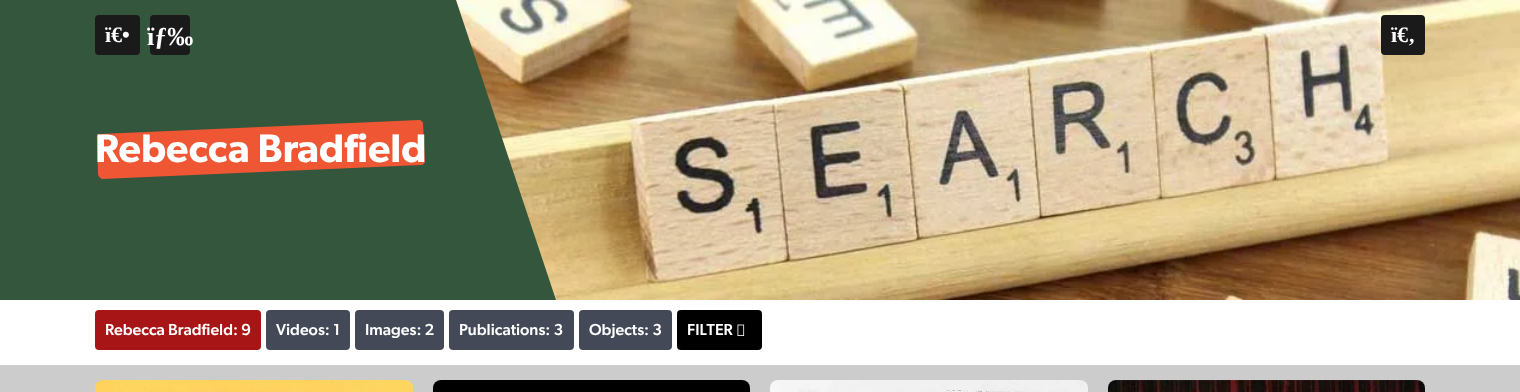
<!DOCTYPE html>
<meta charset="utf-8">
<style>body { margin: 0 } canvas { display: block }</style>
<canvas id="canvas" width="1520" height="392"></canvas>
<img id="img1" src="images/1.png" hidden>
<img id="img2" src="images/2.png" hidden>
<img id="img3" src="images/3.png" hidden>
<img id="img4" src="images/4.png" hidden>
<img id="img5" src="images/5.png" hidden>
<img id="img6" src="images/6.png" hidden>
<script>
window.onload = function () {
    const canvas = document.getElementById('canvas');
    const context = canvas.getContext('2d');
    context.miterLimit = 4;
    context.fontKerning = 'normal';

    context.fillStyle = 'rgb(204, 204, 204)';
    context.fillRect(0, 0, 1520, 392);
    context.fillStyle = 'rgb(51, 86, 61)';
    context.fillRect(0, 0, 456, 300);
    context.fillStyle = 'rgb(26, 26, 26)';
    context.beginPath();
    context.roundRect(95, 15, 45, 40, 4);
    context.fill();
    context.beginPath();
    context.roundRect(150, 15, 40, 40, 4);
    context.fill();
    context.drawImage(document.getElementById('img1'), 456, 0, 1064, 300);
    context.beginPath();
    context.roundRect(1381, 15, 44, 40, 4);
    context.fill();
    context.fillStyle = 'rgb(239, 86, 51)';
    context.beginPath();
    context.moveTo(101, 134);
    context.lineTo(419, 120);
    context.bezierCurveTo(421, 120, 422, 121, 423, 123);
    context.lineTo(425, 162);
    context.bezierCurveTo(424, 164, 423, 165, 421, 165);
    context.lineTo(102, 179);
    context.bezierCurveTo(100, 178, 98, 176, 98, 174);
    context.lineTo(97, 139);
    context.bezierCurveTo(96, 136, 98, 134, 101, 134);
    context.closePath();
    context.fill();
    context.fillStyle = 'rgb(51, 86, 61)';
    context.beginPath();
    context.moveTo(556, 300);
    context.lineTo(456, 300);
    context.lineTo(456, 0);
    context.closePath();
    context.fill();
    context.fillStyle = 'rgb(255, 255, 255)';
    context.fillRect(0, 300, 1520, 65);
    context.fillStyle = 'rgb(168, 21, 22)';
    context.beginPath();
    context.roundRect(95, 310, 166, 40, 4);
    context.fill();
    context.fillStyle = 'rgb(67, 73, 87)';
    context.beginPath();
    context.roundRect(266, 310, 84, 40, 4);
    context.fill();
    context.beginPath();
    context.roundRect(355, 310, 89, 40, 4);
    context.fill();
    context.beginPath();
    context.roundRect(449, 310, 125, 40, 4);
    context.fill();
    context.beginPath();
    context.roundRect(579, 310, 93, 40, 4);
    context.fill();
    context.fillStyle = 'rgb(0, 0, 0)';
    context.beginPath();
    context.roundRect(677, 310, 85, 40, 4);
    context.fill();
    context.drawImage(document.getElementById('img2'), 737, 324, 8, 12);
    context.drawImage(document.getElementById('img3'), 95, 380, 318, 12);
    context.drawImage(document.getElementById('img4'), 433, 380, 317, 12);
    context.drawImage(document.getElementById('img5'), 770, 380, 318, 12);
    context.drawImage(document.getElementById('img6'), 1108, 380, 317, 12);
    context.font = 'bold 22px Liberation Serif';
    context.fillStyle = 'rgb(255, 255, 255)';
    context.fillText('ï€•', 105, 42);
    context.font = 'bold 26px Liberation Serif';
    context.fillText('ïƒ‰', 147, 45);
    context.font = 'bold 22px Liberation Serif';
    context.fillText('ï€‚', 1391, 42);
    context.font = '600 40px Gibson';
    context.fillText('Rebecca Bradfield', 95, 162);
    context.font = '500 16px Gibson';
    context.fillText('Rebecca Bradfield: 9', 105, 335);
    context.fillText('Videos: 1', 276, 335);
    context.fillText('Images: 2', 365, 335);
    context.fillText('Publications: 3', 459, 335);
    context.fillText('Objects: 3', 589, 335);
    context.fillText('FILTER', 687, 335);
};
</script>
